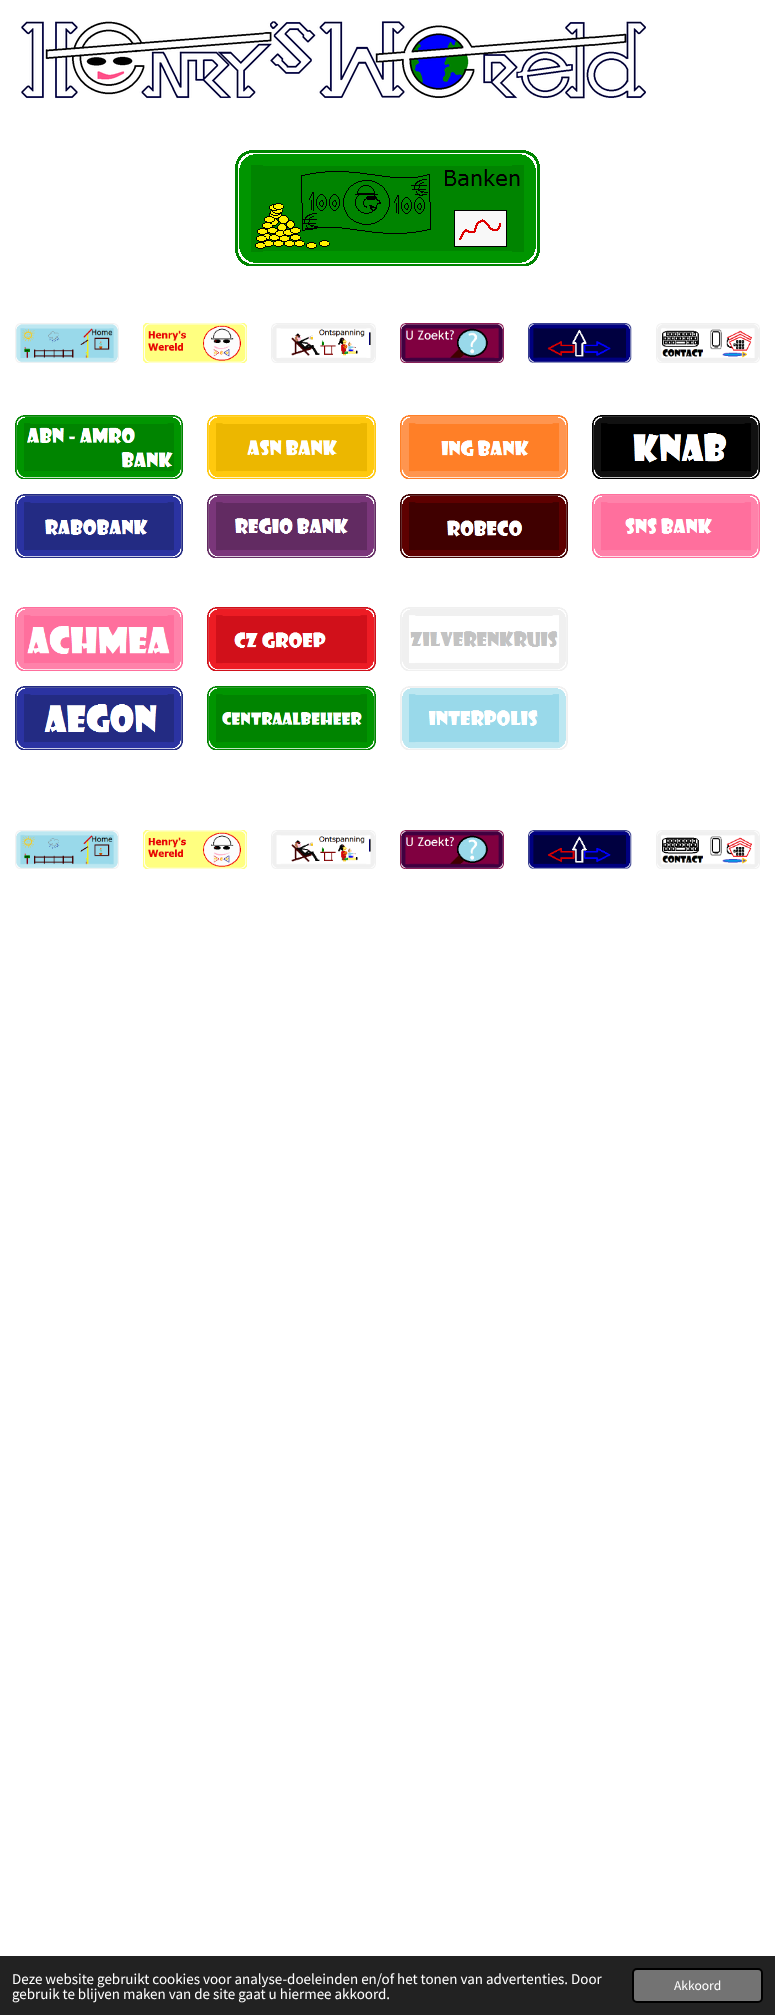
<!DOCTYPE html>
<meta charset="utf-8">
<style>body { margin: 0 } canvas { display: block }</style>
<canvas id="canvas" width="775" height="2015"></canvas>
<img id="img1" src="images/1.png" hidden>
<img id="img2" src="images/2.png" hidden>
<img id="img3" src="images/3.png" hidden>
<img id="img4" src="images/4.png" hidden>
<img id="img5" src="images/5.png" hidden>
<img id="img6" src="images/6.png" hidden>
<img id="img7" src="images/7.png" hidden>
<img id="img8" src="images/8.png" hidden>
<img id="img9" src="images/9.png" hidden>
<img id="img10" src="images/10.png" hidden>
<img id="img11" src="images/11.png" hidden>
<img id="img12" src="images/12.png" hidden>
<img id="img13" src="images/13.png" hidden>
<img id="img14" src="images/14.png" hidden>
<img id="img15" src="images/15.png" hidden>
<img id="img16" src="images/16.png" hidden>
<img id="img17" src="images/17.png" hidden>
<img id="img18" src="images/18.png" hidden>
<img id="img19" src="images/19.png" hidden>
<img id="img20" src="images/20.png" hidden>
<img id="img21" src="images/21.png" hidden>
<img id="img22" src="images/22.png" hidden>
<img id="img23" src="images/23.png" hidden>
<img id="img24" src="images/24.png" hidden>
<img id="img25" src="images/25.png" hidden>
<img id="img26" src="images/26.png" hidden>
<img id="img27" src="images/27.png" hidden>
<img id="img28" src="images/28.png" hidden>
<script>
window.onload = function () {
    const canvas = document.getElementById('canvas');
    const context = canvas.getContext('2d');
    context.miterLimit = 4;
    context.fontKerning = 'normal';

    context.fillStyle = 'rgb(255, 255, 255)';
    context.fillRect(0, 0, 775, 2015);
    context.drawImage(document.getElementById('img1'), 21, 21, 625, 78);
    context.drawImage(document.getElementById('img2'), 235, 150, 305, 116);
    context.drawImage(document.getElementById('img3'), 15, 323, 104, 40);
    context.drawImage(document.getElementById('img4'), 143, 323, 104, 40);
    context.drawImage(document.getElementById('img5'), 271, 323, 105, 40);
    context.drawImage(document.getElementById('img6'), 400, 323, 104, 40);
    context.drawImage(document.getElementById('img7'), 528, 323, 104, 40);
    context.drawImage(document.getElementById('img8'), 656, 323, 104, 40);
    context.drawImage(document.getElementById('img9'), 15, 415, 168, 64);
    context.drawImage(document.getElementById('img10'), 207, 415, 169, 64);
    context.drawImage(document.getElementById('img11'), 400, 415, 168, 64);
    context.drawImage(document.getElementById('img12'), 592, 415, 168, 64);
    context.drawImage(document.getElementById('img13'), 15, 494, 168, 64);
    context.drawImage(document.getElementById('img14'), 207, 494, 169, 64);
    context.drawImage(document.getElementById('img15'), 400, 494, 168, 64);
    context.drawImage(document.getElementById('img16'), 592, 494, 168, 64);
    context.drawImage(document.getElementById('img17'), 15, 607, 168, 64);
    context.drawImage(document.getElementById('img18'), 207, 607, 169, 64);
    context.drawImage(document.getElementById('img19'), 400, 607, 168, 64);
    context.drawImage(document.getElementById('img20'), 15, 686, 168, 64);
    context.drawImage(document.getElementById('img21'), 207, 686, 169, 64);
    context.drawImage(document.getElementById('img22'), 400, 686, 168, 64);
    context.drawImage(document.getElementById('img23'), 15, 830, 104, 39);
    context.drawImage(document.getElementById('img24'), 143, 830, 104, 39);
    context.drawImage(document.getElementById('img25'), 271, 830, 105, 39);
    context.drawImage(document.getElementById('img26'), 400, 830, 104, 39);
    context.drawImage(document.getElementById('img27'), 528, 830, 104, 39);
    context.drawImage(document.getElementById('img28'), 656, 830, 104, 39);
    context.fillStyle = 'rgb(34, 34, 34)';
    context.fillRect(0, 1956, 775, 59);
    context.fillStyle = 'rgb(115, 115, 115)';
    context.beginPath();
    context.roundRect(633, 1969, 129, 33, 4);
    context.fill();
    context.strokeStyle = 'rgb(0, 0, 0)';
    context.lineWidth = 2;
    context.stroke();
    context.font = '15px Source Sans Pro';
    context.fillStyle = 'rgb(255, 255, 255)';
    context.fillText('Deze website gebruikt cookies voor analyse-doeleinden en/of het tonen van advertenties. Door', 12, 1984);
    context.fillText('gebruik te blijven maken van de site gaat u hiermee akkoord.', 12, 1999);
    context.font = '13.5px Source Sans Pro';
    context.fillText('Akkoord', 674, 1990);
};
</script>
